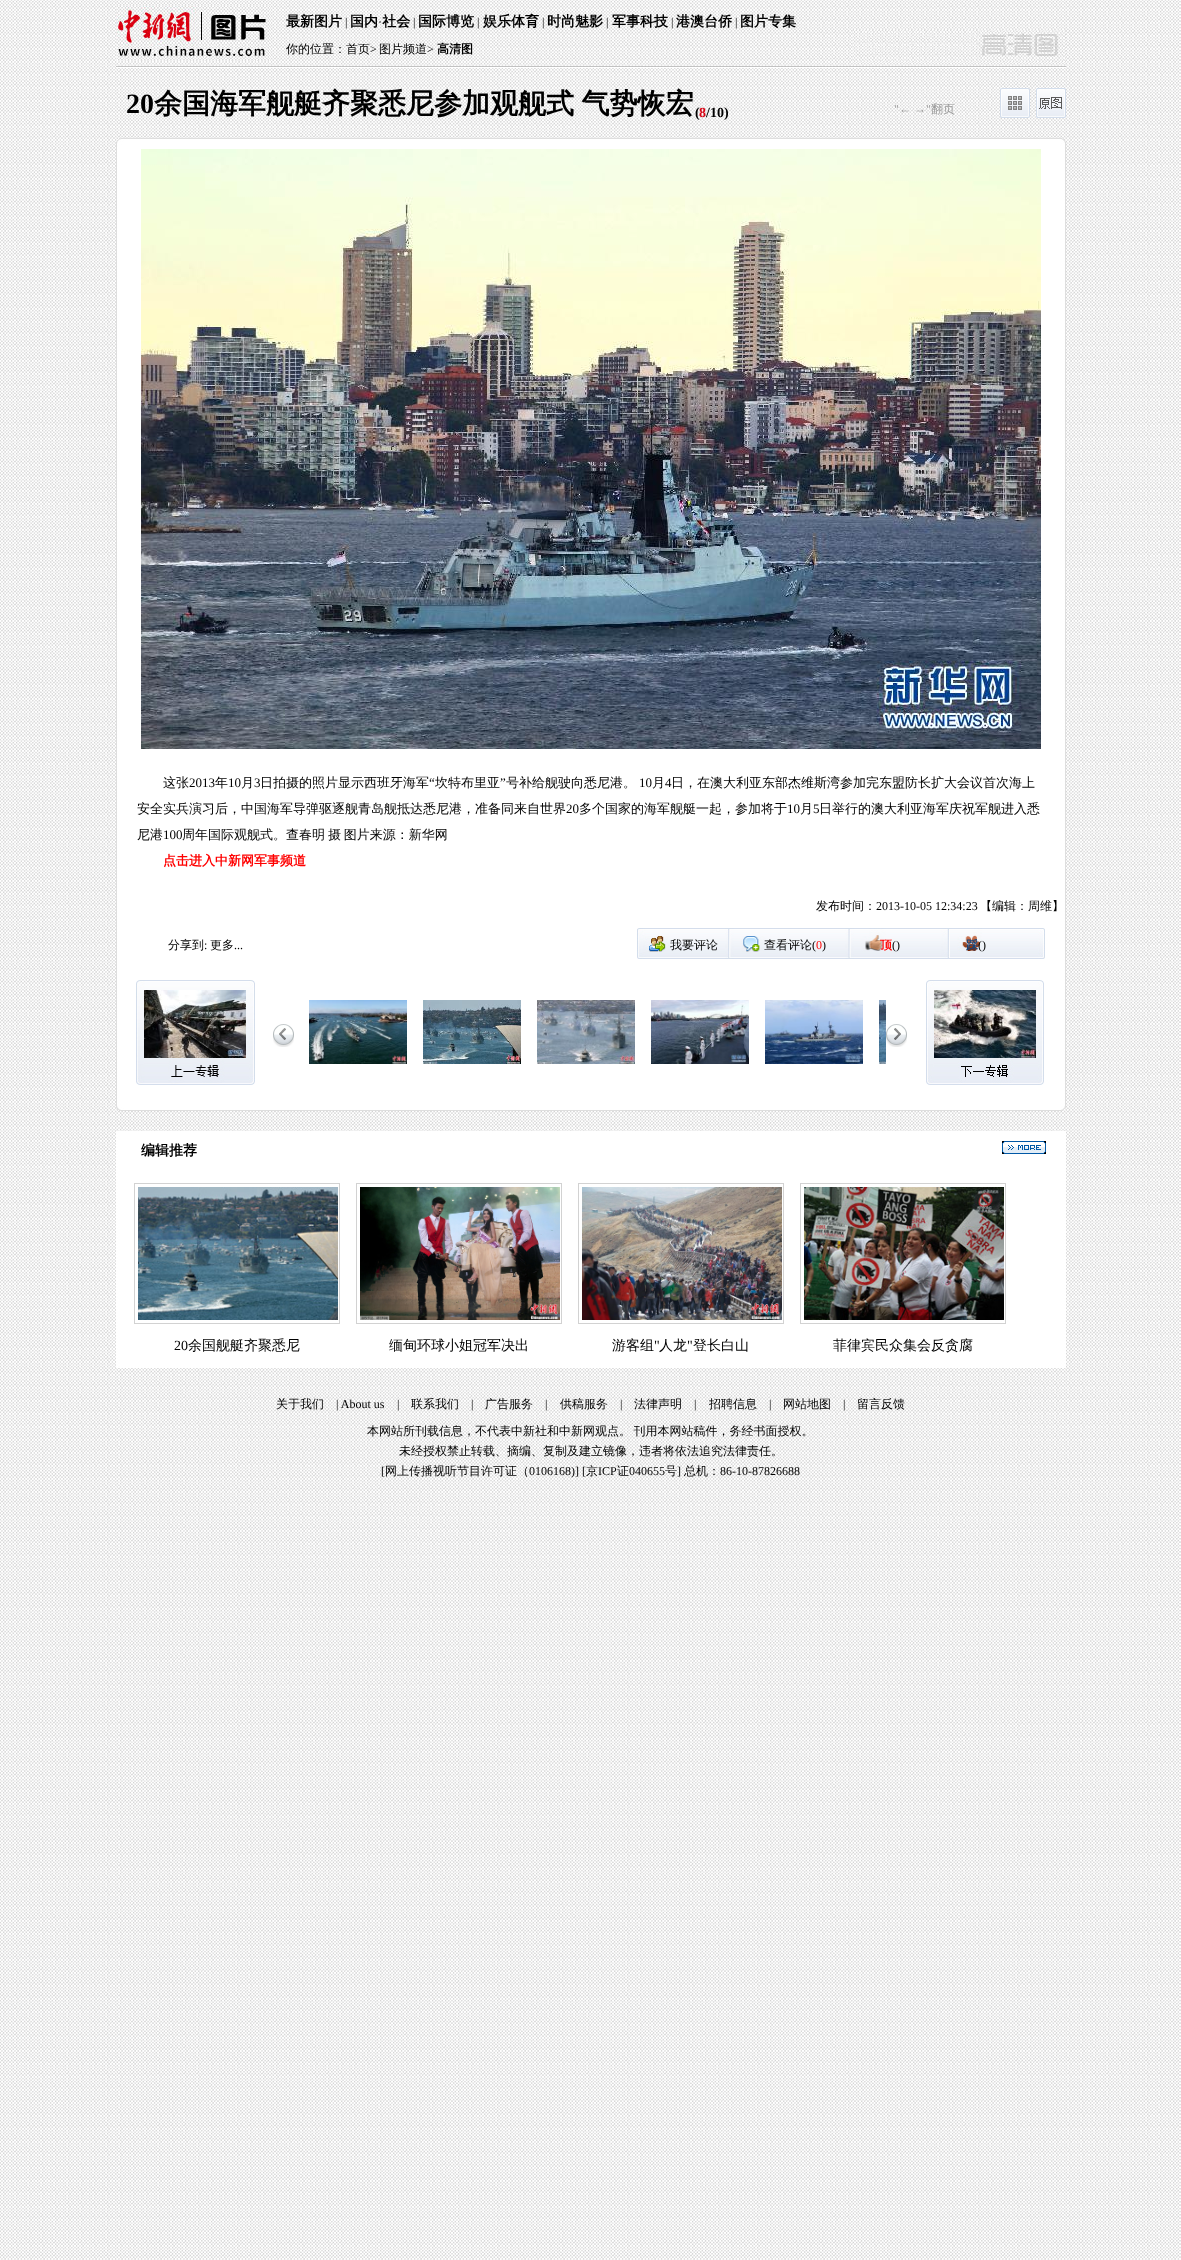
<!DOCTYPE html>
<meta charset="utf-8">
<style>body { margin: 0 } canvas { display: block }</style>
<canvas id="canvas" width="1181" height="2260"></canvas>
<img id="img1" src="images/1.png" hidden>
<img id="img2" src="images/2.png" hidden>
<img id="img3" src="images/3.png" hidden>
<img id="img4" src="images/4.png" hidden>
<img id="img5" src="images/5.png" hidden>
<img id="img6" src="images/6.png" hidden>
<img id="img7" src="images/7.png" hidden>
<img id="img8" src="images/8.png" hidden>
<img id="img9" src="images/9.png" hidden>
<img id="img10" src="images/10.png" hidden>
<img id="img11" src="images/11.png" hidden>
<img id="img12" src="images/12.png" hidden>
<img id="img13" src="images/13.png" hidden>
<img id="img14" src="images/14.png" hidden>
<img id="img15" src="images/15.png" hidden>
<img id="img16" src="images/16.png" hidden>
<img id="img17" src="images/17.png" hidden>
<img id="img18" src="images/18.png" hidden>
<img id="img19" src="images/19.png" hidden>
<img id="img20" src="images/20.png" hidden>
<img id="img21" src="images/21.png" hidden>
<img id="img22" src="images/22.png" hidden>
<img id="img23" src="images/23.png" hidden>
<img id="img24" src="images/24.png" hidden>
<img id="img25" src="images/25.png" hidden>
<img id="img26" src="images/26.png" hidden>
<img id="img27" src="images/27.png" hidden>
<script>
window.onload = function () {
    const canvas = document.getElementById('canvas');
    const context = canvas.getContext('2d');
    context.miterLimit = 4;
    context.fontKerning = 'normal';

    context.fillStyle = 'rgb(255, 255, 255)';
    context.fillRect(0, 0, 1181, 2260);
    context.drawImage(document.getElementById('img1'), 0, 0, 1181, 2260);
    context.drawImage(document.getElementById('img2'), 116, 66, 950, 2);
    context.drawImage(document.getElementById('img3'), 116, 6, 154, 55);
    context.drawImage(document.getElementById('img4'), 853, 30, 213, 32);
    context.drawImage(document.getElementById('img5'), 1000, 88, 30, 30);
    context.drawImage(document.getElementById('img6'), 1036, 88, 30, 30);
    context.drawImage(document.getElementById('img7'), 116, 138, 950, 10);
    context.fillRect(117, 148, 948, 957);
    context.fillStyle = 'rgb(222, 222, 222)';
    context.fillRect(1065, 148, 1, 957);
    context.fillRect(116, 148, 1, 957);
    context.drawImage(document.getElementById('img8'), 141, 149, 900, 600);
    context.drawImage(document.getElementById('img9'), 637, 928, 408, 31);
    context.drawImage(document.getElementById('img10'), 136, 980, 119, 105);
    context.drawImage(document.getElementById('img11'), 144, 990, 102, 68);
    context.drawImage(document.getElementById('img12'), 273, 1024, 21, 23);
    context.drawImage(document.getElementById('img13'), 309, 1000, 98, 64);
    context.drawImage(document.getElementById('img14'), 423, 1000, 98, 64);
    context.drawImage(document.getElementById('img15'), 537, 1000, 98, 64);
    context.drawImage(document.getElementById('img16'), 651, 1000, 98, 64);
    context.drawImage(document.getElementById('img17'), 765, 1000, 98, 64);
    context.drawImage(document.getElementById('img18'), 879, 1000, 7, 64);
    context.drawImage(document.getElementById('img19'), 886, 1024, 21, 23);
    context.drawImage(document.getElementById('img20'), 926, 980, 118, 105);
    context.drawImage(document.getElementById('img21'), 934, 990, 102, 68);
    context.drawImage(document.getElementById('img22'), 116, 1105, 950, 6);
    context.fillStyle = 'rgb(255, 255, 255)';
    context.fillRect(116, 1131, 950, 237);
    context.drawImage(document.getElementById('img23'), 1002, 1141, 44, 13);
    context.strokeStyle = 'rgb(210, 210, 210)';
    context.strokeRect(134.5, 1183.5, 205, 140);
    context.drawImage(document.getElementById('img24'), 138, 1187, 200, 133);
    context.strokeRect(356.5, 1183.5, 205, 140);
    context.drawImage(document.getElementById('img25'), 360, 1187, 200, 133);
    context.strokeRect(578.5, 1183.5, 205, 140);
    context.drawImage(document.getElementById('img26'), 582, 1187, 200, 133);
    context.strokeRect(800.5, 1183.5, 205, 140);
    context.drawImage(document.getElementById('img27'), 804, 1187, 200, 133);
    context.font = 'bold 14px WenQuanYi Zen Hei';
    context.fillStyle = 'rgb(0, 0, 0)';
    context.fillText('最新图片', 286, 26);
    context.font = '12px Liberation Serif';
    context.fillText('|', 345, 26);
    context.font = 'bold 14px WenQuanYi Zen Hei';
    context.fillText('国内 社会', 350, 26);
    context.font = '12px Liberation Serif';
    context.fillText('|', 413, 26);
    context.font = 'bold 14px WenQuanYi Zen Hei';
    context.fillText('国际博览', 418, 26);
    context.font = '12px Liberation Serif';
    context.fillText('|', 477, 26);
    context.font = 'bold 14px WenQuanYi Zen Hei';
    context.fillText('娱乐体育', 483, 26);
    context.font = '12px Liberation Serif';
    context.fillText('|', 542, 26);
    context.font = 'bold 14px WenQuanYi Zen Hei';
    context.fillText('时尚魅影', 547, 26);
    context.font = '12px Liberation Serif';
    context.fillText('|', 606, 26);
    context.font = 'bold 14px WenQuanYi Zen Hei';
    context.fillText('军事科技', 612, 26);
    context.font = '12px Liberation Serif';
    context.fillText('|', 671, 26);
    context.font = 'bold 14px WenQuanYi Zen Hei';
    context.fillText('港澳台侨', 676, 26);
    context.font = '12px Liberation Serif';
    context.fillText('|', 735, 26);
    context.font = 'bold 14px WenQuanYi Zen Hei';
    context.fillText('图片专集', 740, 26);
    context.font = '12px Liberation Serif';
    context.fillText('·', 378, 26);
    context.font = '500 12px WenQuanYi Zen Hei';
    context.fillText('你的位置：首页', 286, 53);
    context.font = '12px Liberation Serif';
    context.fillText('>', 370, 53);
    context.font = '500 12px WenQuanYi Zen Hei';
    context.fillText('图片频道', 379, 53);
    context.font = '12px Liberation Serif';
    context.fillText('>', 427, 53);
    context.font = 'bold 12px WenQuanYi Zen Hei';
    context.fillText('高清图', 437, 53);
    context.font = 'bold 28px Liberation Serif';
    context.fillText('20', 126, 113);
    context.wordSpacing = '-1px';
    context.font = 'bold 28px WenQuanYi Zen Hei';
    context.fillText('余国海军舰艇齐聚悉尼参加观舰式 气势恢宏', 154, 113);
    context.wordSpacing = '0px';
    context.font = 'bold 14px Liberation Serif';
    context.fillText('(', 695, 117);
    context.fillStyle = 'rgb(214, 0, 17)';
    context.fillText('8', 699, 117);
    context.fillStyle = 'rgb(0, 0, 0)';
    context.fillText('/10)', 706, 117);
    context.font = '12px Liberation Serif';
    context.fillStyle = 'rgb(153, 153, 153)';
    context.fillText('"← →"', 894, 113);
    context.font = '500 12px WenQuanYi Zen Hei';
    context.fillText('翻页', 931, 113);
    context.font = '500 13px WenQuanYi Zen Hei';
    context.fillStyle = 'rgb(0, 0, 0)';
    context.fillText('这张', 163, 787);
    context.font = '13px Liberation Serif';
    context.fillText('2013', 189, 787);
    context.font = '500 13px WenQuanYi Zen Hei';
    context.fillText('年', 215, 787);
    context.font = '13px Liberation Serif';
    context.fillText('10', 228, 787);
    context.font = '500 13px WenQuanYi Zen Hei';
    context.fillText('月', 241, 787);
    context.font = '13px Liberation Serif';
    context.fillText('3', 254, 787);
    context.font = '500 13px WenQuanYi Zen Hei';
    context.fillText('日拍摄的照片显示西班牙海军', 260, 787);
    context.font = '13px Liberation Serif';
    context.fillText('“', 429, 787);
    context.font = '500 13px WenQuanYi Zen Hei';
    context.fillText('坎特布里亚', 435, 787);
    context.font = '13px Liberation Serif';
    context.fillText('”', 500, 787);
    context.font = '500 13px WenQuanYi Zen Hei';
    context.fillText('号补给舰驶向悉尼港。', 506, 787);
    context.font = '13px Liberation Serif';
    context.fillText('10', 639, 787);
    context.font = '500 13px WenQuanYi Zen Hei';
    context.fillText('月', 652, 787);
    context.font = '13px Liberation Serif';
    context.fillText('4', 665, 787);
    context.font = '500 13px WenQuanYi Zen Hei';
    context.fillText('日，在澳大利亚东部杰维斯湾参加完东盟防长扩大会议首次海上', 671, 787);
    context.fillText('安全实兵演习后，中国海军导弹驱逐舰青岛舰抵达悉尼港，准备同来自世界', 137, 813);
    context.font = '13px Liberation Serif';
    context.fillText('20', 566, 813);
    context.font = '500 13px WenQuanYi Zen Hei';
    context.fillText('多个国家的海军舰艇一起，参加将于', 579, 813);
    context.font = '13px Liberation Serif';
    context.fillText('10', 787, 813);
    context.font = '500 13px WenQuanYi Zen Hei';
    context.fillText('月', 800, 813);
    context.font = '13px Liberation Serif';
    context.fillText('5', 813, 813);
    context.font = '500 13px WenQuanYi Zen Hei';
    context.fillText('日举行的澳大利亚海军庆祝军舰进入悉', 819, 813);
    context.fillText('尼港', 137, 839);
    context.font = '13px Liberation Serif';
    context.fillText('100', 163, 839);
    context.wordSpacing = '-1px';
    context.font = '500 13px WenQuanYi Zen Hei';
    context.fillText('周年国际观舰式。查春明 摄 图片来源：新华网', 182, 839);
    context.wordSpacing = '0px';
    context.font = 'bold 13px WenQuanYi Zen Hei';
    context.fillStyle = 'rgb(255, 0, 0)';
    context.fillText('点击进入中新网军事频道', 163, 865);
    context.font = '500 12px WenQuanYi Zen Hei';
    context.fillStyle = 'rgb(0, 0, 0)';
    context.fillText('发布时间：', 816, 910);
    context.font = '12px Liberation Serif';
    context.fillText('2013-10-05 12:34:23', 876, 910);
    context.font = '500 12px WenQuanYi Zen Hei';
    context.fillText('【编辑：周维】', 980, 910);
    context.fillText('分享到', 168, 949);
    context.font = '12px Liberation Serif';
    context.fillText(':', 204, 949);
    context.font = '500 12px WenQuanYi Zen Hei';
    context.fillText('更多', 210, 949);
    context.font = '12px Liberation Serif';
    context.fillText('...', 234, 949);
    context.font = '500 12px WenQuanYi Zen Hei';
    context.fillText('我要评论', 670, 949);
    context.fillText('查看评论', 764, 949);
    context.font = '12px Liberation Serif';
    context.fillText('(', 812, 949);
    context.fillStyle = 'rgb(255, 0, 0)';
    context.fillText('0', 816, 949);
    context.fillStyle = 'rgb(0, 0, 0)';
    context.fillText(')', 822, 949);
    context.font = 'bold 12px WenQuanYi Zen Hei';
    context.fillStyle = 'rgb(255, 0, 0)';
    context.fillText('顶', 880, 949);
    context.font = '12px Liberation Serif';
    context.fillStyle = 'rgb(0, 0, 0)';
    context.fillText('()', 892, 949);
    context.font = 'bold 12px WenQuanYi Zen Hei';
    context.fillStyle = 'rgb(24, 68, 122)';
    context.fillText('踩', 966, 949);
    context.font = '12px Liberation Serif';
    context.fillStyle = 'rgb(0, 0, 0)';
    context.fillText('()', 978, 949);
    context.font = 'bold 14px WenQuanYi Zen Hei';
    context.fillText('编辑推荐', 141, 1155);
    context.font = '14px Liberation Serif';
    context.fillText('20', 174, 1350);
    context.font = '500 14px WenQuanYi Zen Hei';
    context.fillText('余国舰艇齐聚悉尼', 188, 1350);
    context.fillText('缅甸环球小姐冠军决出', 389, 1350);
    context.fillText('游客组', 612, 1350);
    context.font = '14px Liberation Serif';
    context.fillText('"', 654, 1350);
    context.font = '500 14px WenQuanYi Zen Hei';
    context.fillText('人龙', 659, 1350);
    context.font = '14px Liberation Serif';
    context.fillText('"', 687, 1350);
    context.font = '500 14px WenQuanYi Zen Hei';
    context.fillText('登长白山', 693, 1350);
    context.fillText('菲律宾民众集会反贪腐', 833, 1350);
    context.font = '500 12px WenQuanYi Zen Hei';
    context.fillText('关于我们', 276, 1408);
    context.font = '12px Liberation Serif';
    context.fillText('| About us', 336, 1408);
    context.fillText('|', 397, 1408);
    context.font = '500 12px WenQuanYi Zen Hei';
    context.fillText('联系我们', 411, 1408);
    context.font = '12px Liberation Serif';
    context.fillText('|', 471, 1408);
    context.font = '500 12px WenQuanYi Zen Hei';
    context.fillText('广告服务', 485, 1408);
    context.font = '12px Liberation Serif';
    context.fillText('|', 545, 1408);
    context.font = '500 12px WenQuanYi Zen Hei';
    context.fillText('供稿服务', 560, 1408);
    context.font = '12px Liberation Serif';
    context.fillText('|', 620, 1408);
    context.font = '500 12px WenQuanYi Zen Hei';
    context.fillText('法律声明', 634, 1408);
    context.font = '12px Liberation Serif';
    context.fillText('|', 694, 1408);
    context.font = '500 12px WenQuanYi Zen Hei';
    context.fillText('招聘信息', 709, 1408);
    context.font = '12px Liberation Serif';
    context.fillText('|', 769, 1408);
    context.font = '500 12px WenQuanYi Zen Hei';
    context.fillText('网站地图', 783, 1408);
    context.font = '12px Liberation Serif';
    context.fillText('|', 843, 1408);
    context.font = '500 12px WenQuanYi Zen Hei';
    context.fillText('留言反馈', 857, 1408);
    context.wordSpacing = '-1px';
    context.fillText('本网站所刊载信息，不代表中新社和中新网观点。 刊用本网站稿件，务经书面授权。', 367, 1435);
    context.wordSpacing = '0px';
    context.fillText('未经授权禁止转载、摘编、复制及建立镜像，违者将依法追究法律责任。', 399, 1455);
    context.font = '12px Liberation Serif';
    context.fillText('[', 381, 1475);
    context.font = '500 12px WenQuanYi Zen Hei';
    context.fillText('网上传播视听节目许可证（', 385, 1475);
    context.font = '12px Liberation Serif';
    context.fillText('0106168)] [', 529, 1475);
    context.font = '500 12px WenQuanYi Zen Hei';
    context.fillText('京', 586, 1475);
    context.font = '12px Liberation Serif';
    context.fillText('ICP', 598, 1475);
    context.font = '500 12px WenQuanYi Zen Hei';
    context.fillText('证', 617, 1475);
    context.font = '12px Liberation Serif';
    context.fillText('040655', 629, 1475);
    context.font = '500 12px WenQuanYi Zen Hei';
    context.fillText('号', 665, 1475);
    context.font = '12px Liberation Serif';
    context.fillText(']', 677, 1475);
    context.font = '500 12px WenQuanYi Zen Hei';
    context.fillText('总机：', 684, 1475);
    context.font = '12px Liberation Serif';
    context.fillText('86-10-87826688', 720, 1475);
};
</script>
